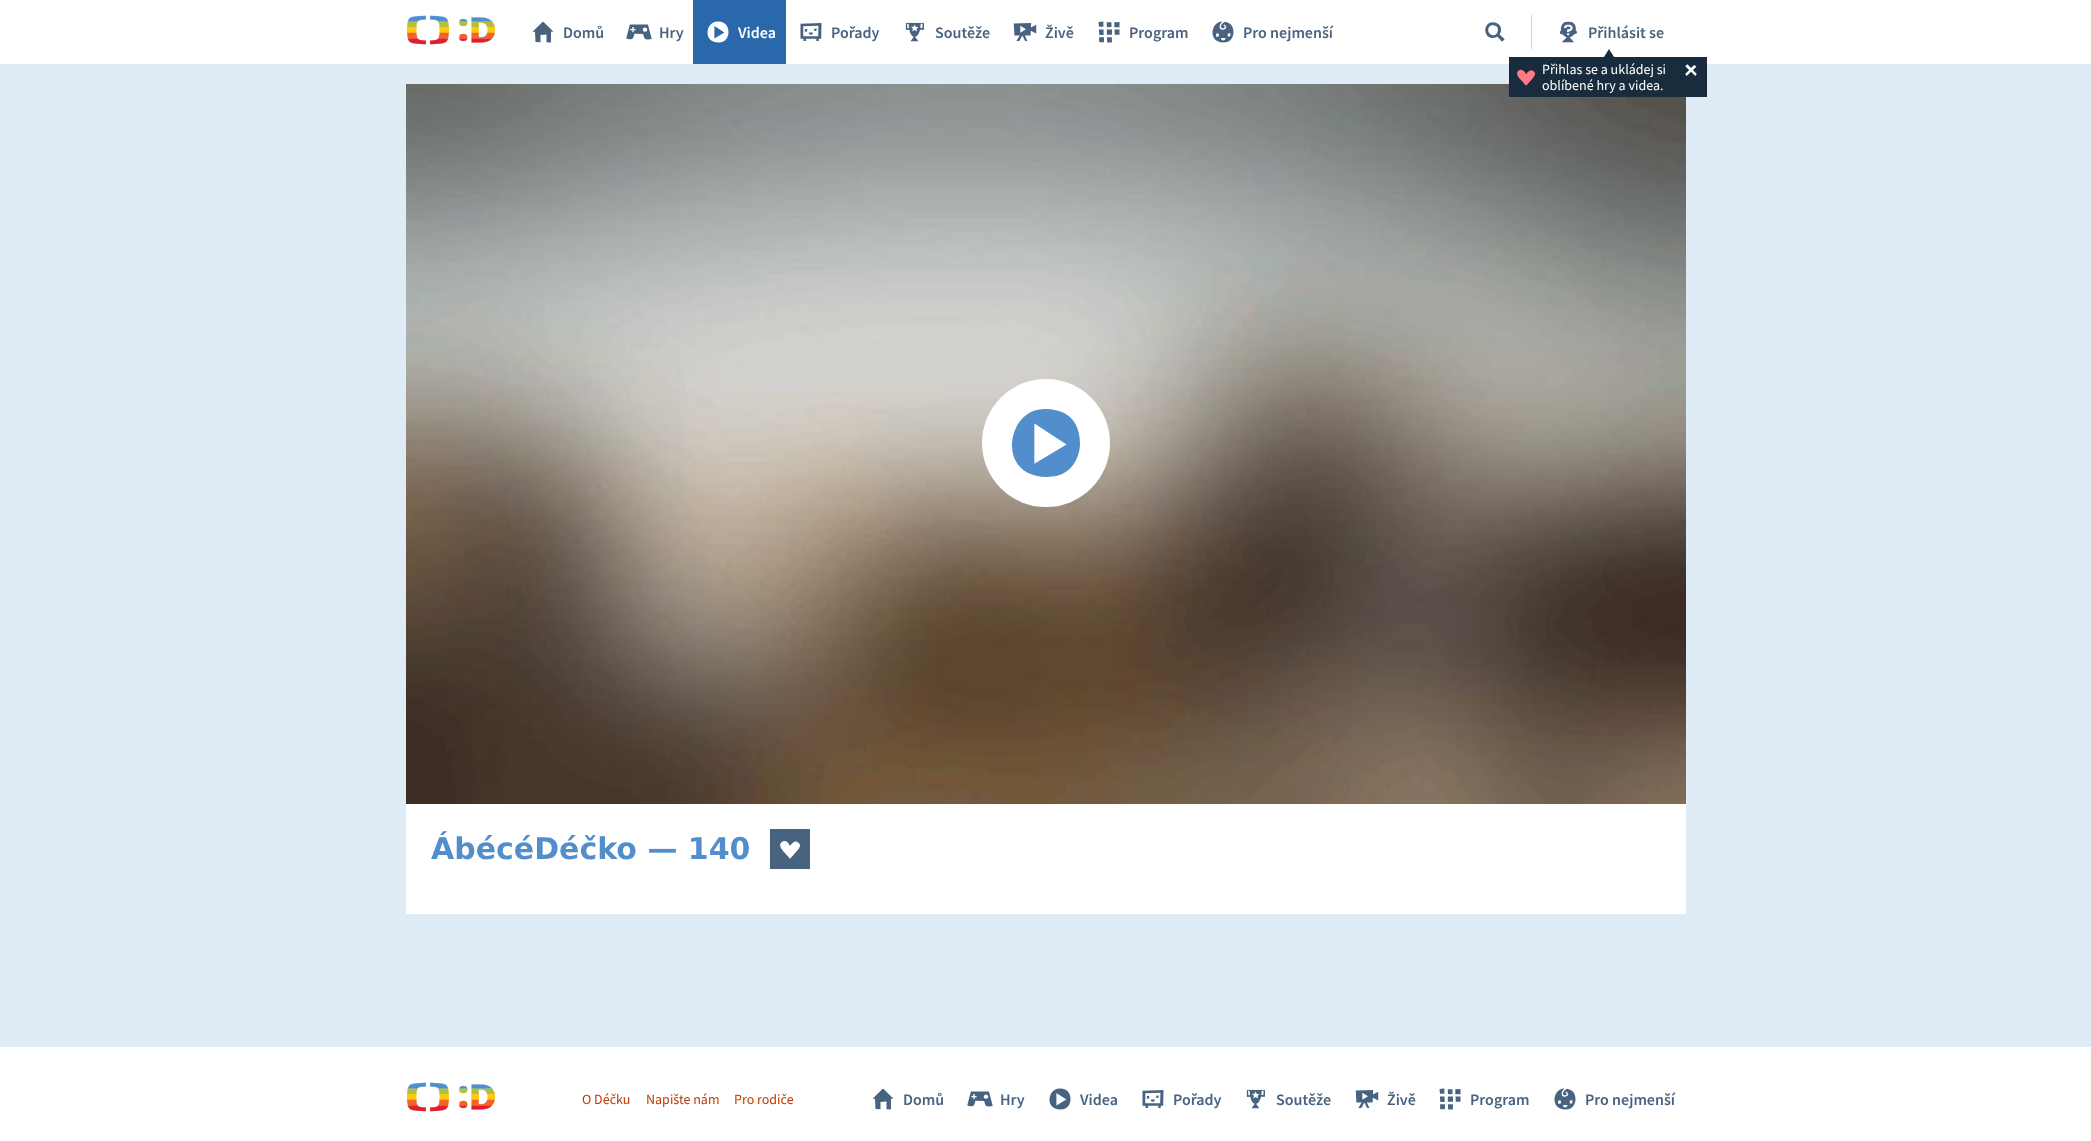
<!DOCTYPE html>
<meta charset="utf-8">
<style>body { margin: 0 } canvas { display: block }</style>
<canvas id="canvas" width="2091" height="1141"></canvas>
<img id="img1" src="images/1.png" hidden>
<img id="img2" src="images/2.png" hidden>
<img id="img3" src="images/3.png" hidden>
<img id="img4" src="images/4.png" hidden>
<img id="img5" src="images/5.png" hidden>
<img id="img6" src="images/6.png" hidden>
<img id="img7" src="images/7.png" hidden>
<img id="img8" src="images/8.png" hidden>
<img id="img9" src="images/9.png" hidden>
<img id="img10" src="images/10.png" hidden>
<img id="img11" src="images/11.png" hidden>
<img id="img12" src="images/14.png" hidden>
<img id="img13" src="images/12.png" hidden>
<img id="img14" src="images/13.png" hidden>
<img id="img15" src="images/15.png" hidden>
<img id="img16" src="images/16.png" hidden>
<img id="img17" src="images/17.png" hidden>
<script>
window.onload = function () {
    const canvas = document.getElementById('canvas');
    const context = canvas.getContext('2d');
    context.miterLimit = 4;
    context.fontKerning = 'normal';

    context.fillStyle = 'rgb(224, 236, 245)';
    context.fillRect(0, 0, 2091, 1141);
    context.fillStyle = 'rgb(255, 255, 255)';
    context.fillRect(0, 0, 2091, 64);
    context.drawImage(document.getElementById('img1'), 406, 15, 90, 30);
    context.drawImage(document.getElementById('img2'), 532, 21, 22, 22);
    context.drawImage(document.getElementById('img3'), 626, 24, 26, 16);
    context.fillStyle = 'rgb(41, 105, 171)';
    context.fillRect(693, 0, 93, 64);
    context.drawImage(document.getElementById('img4'), 707, 21, 22, 22);
    context.drawImage(document.getElementById('img5'), 800, 23, 22, 18);
    context.drawImage(document.getElementById('img6'), 905, 22, 19, 20);
    context.drawImage(document.getElementById('img7'), 1013, 23, 24, 18);
    context.drawImage(document.getElementById('img8'), 1098, 21, 22, 22);
    context.drawImage(document.getElementById('img9'), 1212, 21, 22, 22);
    context.drawImage(document.getElementById('img10'), 1485, 22, 20, 20);
    context.fillStyle = 'rgb(195, 215, 230)';
    context.fillRect(1531, 15, 1, 34);
    context.drawImage(document.getElementById('img11'), 1559, 21, 18, 22);
    context.drawImage(document.getElementById('img12'), 406, 84, 1280, 720);
    context.fillStyle = 'rgb(25, 44, 61)';
    context.fillRect(1509, 57, 198, 40);
    context.beginPath();
    context.moveTo(1614, 57);
    context.lineTo(1604, 57);
    context.lineTo(1609, 49);
    context.closePath();
    context.fill();
    context.drawImage(document.getElementById('img13'), 1517, 69, 19, 17);
    context.drawImage(document.getElementById('img14'), 1685, 64, 12, 12);
    context.drawImage(document.getElementById('img15'), 982, 379, 128, 128);
    context.fillStyle = 'rgb(255, 255, 255)';
    context.fillRect(406, 804, 1280, 110);
    context.fillStyle = 'rgb(72, 99, 128)';
    context.fillRect(770, 829, 40, 40);
    context.drawImage(document.getElementById('img16'), 780, 841, 20, 18);
    context.fillStyle = 'rgb(255, 255, 255)';
    context.fillRect(0, 1047, 2091, 94);
    context.drawImage(document.getElementById('img1'), 406, 1082, 90, 30);
    context.drawImage(document.getElementById('img2'), 872, 1088, 22, 22);
    context.drawImage(document.getElementById('img3'), 967, 1091, 26, 16);
    context.drawImage(document.getElementById('img17'), 1049, 1088, 22, 22);
    context.drawImage(document.getElementById('img5'), 1142, 1090, 22, 18);
    context.drawImage(document.getElementById('img6'), 1246, 1089, 19, 20);
    context.drawImage(document.getElementById('img7'), 1355, 1090, 24, 18);
    context.drawImage(document.getElementById('img8'), 1439, 1088, 22, 22);
    context.drawImage(document.getElementById('img9'), 1554, 1088, 22, 22);
    context.font = '600 16px Source Sans Pro';
    context.fillStyle = 'rgb(72, 99, 128)';
    context.fillText('Domů', 563, 38);
    context.fillText('Hry', 659, 38);
    context.fillStyle = 'rgb(255, 255, 255)';
    context.fillText('Videa', 738, 38);
    context.fillStyle = 'rgb(72, 99, 128)';
    context.fillText('Pořady', 831, 38);
    context.fillText('Soutěže', 935, 38);
    context.fillText('Živě', 1045, 38);
    context.fillText('Program', 1129, 38);
    context.fillText('Pro nejmenší', 1243, 38);
    context.fillText('Přihlásit se', 1588, 38);
    context.font = '14px Source Sans Pro';
    context.fillStyle = 'rgb(255, 255, 255)';
    context.fillText('Přihlas se a ukládej si', 1542, 74);
    context.fillText('oblíbené hry a videa.', 1542, 90);
    context.font = 'bold 30px DejaVu Sans';
    context.fillStyle = 'rgb(81, 142, 203)';
    context.fillText('ÁbécéDéčko — 140', 431, 859);
    context.font = '14px Source Sans Pro';
    context.fillStyle = 'rgb(189, 61, 0)';
    context.fillText('O Déčku', 582, 1104);
    context.fillText('Napište nám', 646, 1104);
    context.fillText('Pro rodiče', 734, 1104);
    context.font = '600 16px Source Sans Pro';
    context.fillStyle = 'rgb(72, 99, 128)';
    context.fillText('Domů', 903, 1105);
    context.fillText('Hry', 1000, 1105);
    context.fillText('Videa', 1080, 1105);
    context.fillText('Pořady', 1173, 1105);
    context.fillText('Soutěže', 1276, 1105);
    context.fillText('Živě', 1387, 1105);
    context.fillText('Program', 1470, 1105);
    context.fillText('Pro nejmenší', 1585, 1105);
};
</script>
